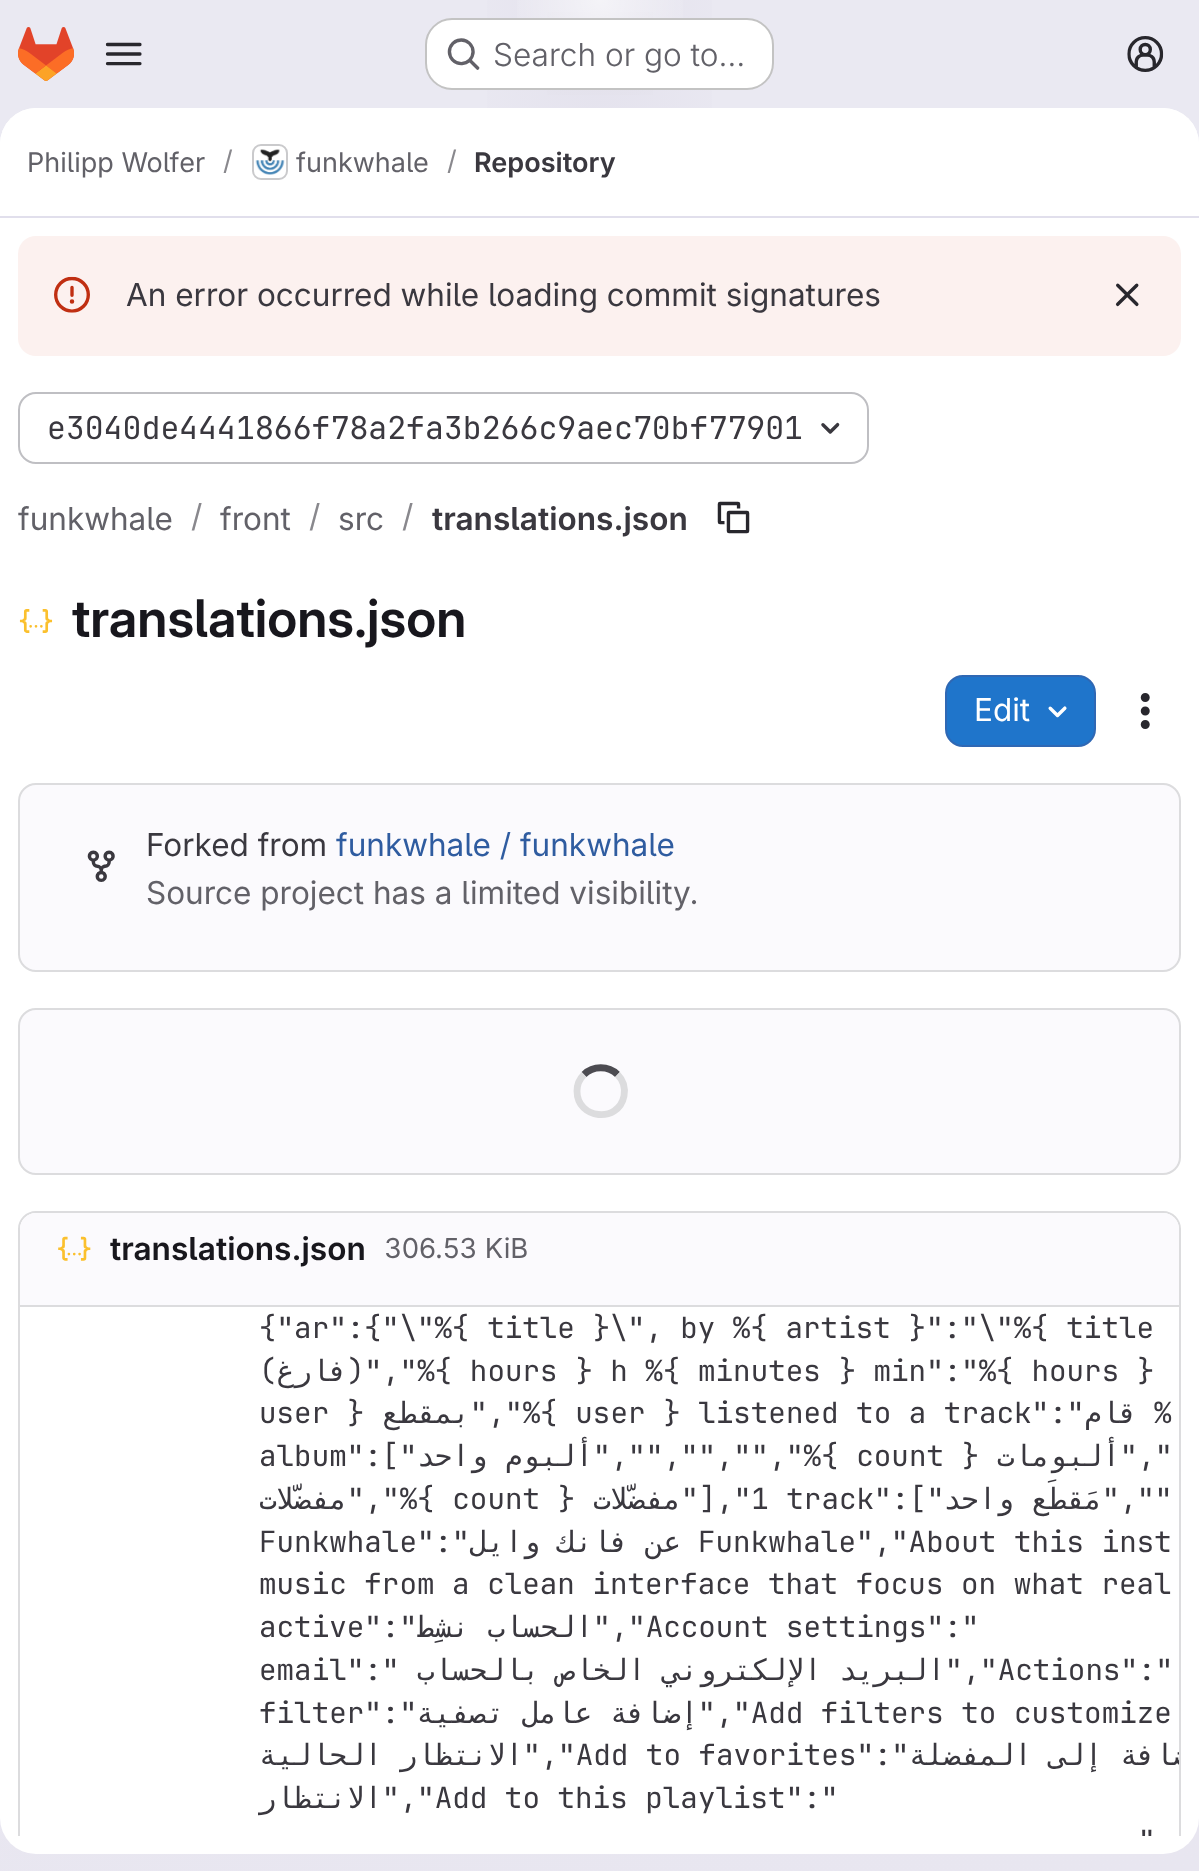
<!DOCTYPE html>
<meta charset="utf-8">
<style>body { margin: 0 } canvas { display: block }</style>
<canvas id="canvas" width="1199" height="1871"></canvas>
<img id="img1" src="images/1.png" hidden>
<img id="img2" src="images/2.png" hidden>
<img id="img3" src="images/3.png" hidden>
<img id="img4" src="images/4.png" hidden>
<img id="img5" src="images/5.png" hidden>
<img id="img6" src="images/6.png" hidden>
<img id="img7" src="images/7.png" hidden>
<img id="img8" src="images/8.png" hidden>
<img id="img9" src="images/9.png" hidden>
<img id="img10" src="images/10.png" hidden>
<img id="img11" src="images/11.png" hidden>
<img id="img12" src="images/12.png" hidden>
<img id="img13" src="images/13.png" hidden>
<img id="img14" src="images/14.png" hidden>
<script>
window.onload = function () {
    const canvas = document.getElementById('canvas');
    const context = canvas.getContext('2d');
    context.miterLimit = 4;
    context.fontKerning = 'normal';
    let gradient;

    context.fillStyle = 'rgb(255, 255, 255)';
    context.fillRect(0, 0, 1199, 1871);
    gradient = context.createLinearGradient(778, 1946, 421, -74);
    gradient.addColorStop(0, 'rgb(232, 230, 240)');
    gradient.addColorStop(0.7, 'rgb(234, 233, 242)');
    context.fillStyle = gradient;
    context.fillRect(0, 0, 1199, 1871);
    gradient = context.createRadialGradient(600, 0, 0, 600, 0, 600);
    gradient.addColorStop(0, 'rgb(228, 226, 237)');
    gradient.addColorStop(0.26, 'rgba(228, 226, 237, 0)');
    context.fillStyle = gradient;
    context.beginPath();
    context.rect(487, 0, 225, 108);
    context.save();
    context.clip();
    context.scale(1, 1872 / 600);
    context.fillRect(0, 0, 1199, 600);
    context.restore();
    gradient = context.createRadialGradient(600, 0, 0, 600, 0, 600);
    gradient.addColorStop(0, 'rgb(228, 226, 236)');
    gradient.addColorStop(0.19, 'rgba(228, 226, 236, 0)');
    context.fillStyle = gradient;
    context.beginPath();
    context.rect(547, 12, 106, 83);
    context.save();
    context.clip();
    context.scale(1, 1872 / 600);
    context.fillRect(0, 0, 1199, 600);
    context.restore();
    gradient = context.createRadialGradient(600, 0, 0, 600, 0, 1966);
    gradient.addColorStop(0, 'rgba(255, 255, 255, 0.6)');
    gradient.addColorStop(0.05, 'rgba(255, 255, 255, 0)');
    context.fillStyle = gradient;
    context.fillRect(517, 0, 166, 18);
    context.drawImage(document.getElementById('img1'), 18, 27, 56, 54);
    context.drawImage(document.getElementById('img2'), 105, 42, 37, 24);
    context.fillStyle = 'rgb(255, 255, 255)';
    context.beginPath();
    context.roundRect(425, 18, 349, 72, 27);
    context.fill();
    context.beginPath();
    context.roundRect(426, 19, 347, 70, 26);
    context.strokeStyle = 'rgba(5, 5, 6, 0.24)';
    context.lineWidth = 2;
    context.stroke();
    context.drawImage(document.getElementById('img3'), 447, 38, 33, 32);
    context.drawImage(document.getElementById('img4'), 1127, 36, 37, 36);
    context.beginPath();
    context.roundRect(0, 108, 1199, 1746, 36);
    context.fill();
    context.beginPath();
    context.roundRect(0, 108, 1199, 110, [36, 36, 0, 0]);
    context.fill();
    context.fillStyle = 'rgb(225, 223, 236)';
    context.fillRect(0, 216, 1199, 2);
    context.beginPath();
    context.roundRect(253, 145, 34, 34, 8);
    context.strokeStyle = 'rgb(220, 220, 222)';
    context.stroke();
    context.drawImage(document.getElementById('img5'), 255, 149, 30, 26);
    context.beginPath();
    context.roundRect(253, 145, 34, 34, 8);
    context.strokeStyle = 'rgba(5, 5, 6, 0.08)';
    context.stroke();
    context.fillStyle = 'rgb(252, 241, 239)';
    context.beginPath();
    context.roundRect(18, 236, 1163, 120, 18);
    context.fill();
    context.drawImage(document.getElementById('img6'), 54, 276, 36, 37);
    context.drawImage(document.getElementById('img7'), 1115, 283, 24, 24);
    context.beginPath();
    context.roundRect(19, 393, 849, 70, 17);
    context.strokeStyle = 'rgb(191, 191, 195)';
    context.stroke();
    context.drawImage(document.getElementById('img8'), 821, 422, 19, 12);
    context.drawImage(document.getElementById('img9'), 717, 501, 33, 33);
    context.drawImage(document.getElementById('img10'), 19, 609, 34, 24);
    context.fillStyle = 'rgb(31, 117, 203)';
    context.beginPath();
    context.roundRect(946, 676, 149, 70, 17);
    context.fill();
    context.strokeStyle = 'rgb(47, 104, 180)';
    context.stroke();
    context.drawImage(document.getElementById('img11'), 1048, 706, 19, 12);
    context.drawImage(document.getElementById('img12'), 1140, 693, 10, 36);
    context.fillStyle = 'rgb(251, 250, 253)';
    context.beginPath();
    context.roundRect(19, 784, 1161, 187, 17);
    context.fill();
    context.strokeStyle = 'rgb(220, 220, 222)';
    context.stroke();
    context.drawImage(document.getElementById('img13'), 87, 850, 28, 32);
    context.beginPath();
    context.roundRect(19, 1009, 1161, 165, 17);
    context.fill();
    context.stroke();
    context.beginPath();
    context.moveTo(584, 1074.5);
    context.bezierCurveTo(593, 1065.5, 608.5, 1065.5, 617.5, 1074.5);
    context.strokeStyle = 'rgb(76, 75, 81)';
    context.lineWidth = 6.8;
    context.stroke();
    context.beginPath();
    context.moveTo(617.5, 1074.5);
    context.bezierCurveTo(623, 1080, 625.5, 1088, 624, 1096);
    context.bezierCurveTo(618.5, 1123.5, 577, 1119.5, 577, 1091);
    context.bezierCurveTo(577, 1085, 579.5, 1079, 584, 1074.5);
    context.strokeStyle = 'rgb(220, 220, 222)';
    context.stroke();
    context.save();
    context.beginPath();
    context.rect(0, 218, 1199, 1618);
    context.clip();
    context.fillStyle = 'rgb(220, 220, 222)';
    context.beginPath();
    context.moveTo(36, 1211);
    context.bezierCurveTo(26, 1211, 18, 1219, 18, 1229);
    context.lineTo(18, 1849);
    context.lineTo(20, 1850);
    context.lineTo(20, 1229);
    context.bezierCurveTo(20, 1220, 27, 1213, 36, 1213);
    context.lineTo(1163, 1213);
    context.bezierCurveTo(1172, 1213, 1179, 1220, 1179, 1229);
    context.lineTo(1179, 1850);
    context.lineTo(1181, 1849);
    context.lineTo(1181, 1229);
    context.bezierCurveTo(1181, 1219, 1173, 1211, 1163, 1211);
    context.closePath();
    context.fill();
    context.restore();
    context.beginPath();
    context.roundRect(20, 1213, 1159, 94, [16, 16, 0, 0]);
    context.fill();
    context.fillStyle = 'rgb(220, 220, 222)';
    context.fillRect(20, 1305, 1159, 2);
    context.drawImage(document.getElementById('img14'), 58, 1236, 33, 25);
    context.font = '300 31.5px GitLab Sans';
    context.fillStyle = 'rgb(98, 97, 104)';
    context.fillText('Search or go to…', 493, 66);
    context.font = '27px GitLab Sans';
    context.fillText('Philipp Wolfer', 27, 172);
    context.fillStyle = 'rgb(137, 136, 141)';
    context.fillText('/', 223, 170);
    context.fillStyle = 'rgb(98, 97, 104)';
    context.fillText('funkwhale', 296, 172);
    context.fillStyle = 'rgb(137, 136, 141)';
    context.fillText('/', 447, 170);
    context.font = '600 27px "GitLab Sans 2"';
    context.fillStyle = 'rgb(58, 56, 63)';
    context.fillText('Repository', 474, 172);
    context.font = '31.5px GitLab Sans';
    context.fillText('An error occurred while loading commit signatures', 126, 306);
    context.font = '31.5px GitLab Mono';
    context.fillText('e3040de4441866f78a2fa3b266c9aec70bf77901', 47, 439);
    context.font = '31.5px GitLab Sans';
    context.fillStyle = 'rgb(98, 97, 104)';
    context.fillText('funkwhale', 18, 530);
    context.fillStyle = 'rgb(137, 136, 141)';
    context.fillText('/', 191, 527);
    context.fillStyle = 'rgb(98, 97, 104)';
    context.fillText('front', 220, 530);
    context.fillStyle = 'rgb(137, 136, 141)';
    context.fillText('/', 309, 527);
    context.fillStyle = 'rgb(98, 97, 104)';
    context.fillText('src', 338, 530);
    context.fillStyle = 'rgb(137, 136, 141)';
    context.fillText('/', 402, 527);
    context.font = '600 31.5px "GitLab Sans 2"';
    context.fillStyle = 'rgb(58, 56, 63)';
    context.fillText('translations.json', 432, 530);
    context.font = '600 51.75px GitLab Sans';
    context.fillStyle = 'rgb(24, 23, 29)';
    context.fillText('translations.json', 72, 637);
    context.font = '31.5px GitLab Sans';
    context.fillStyle = 'rgb(255, 255, 255)';
    context.fillText('Edit', 974, 721);
    context.fillStyle = 'rgb(58, 56, 63)';
    context.fillText('Forked from', 146, 856);
    context.fillStyle = 'rgb(47, 92, 160)';
    context.fillText('funkwhale / funkwhale', 336, 856);
    context.fillStyle = 'rgb(98, 97, 104)';
    context.fillText('Source project has a limited visibility.', 146, 904);
    context.font = '600 31.5px "GitLab Sans 2"';
    context.fillStyle = 'rgb(24, 23, 29)';
    context.fillText('translations.json', 110, 1260);
    context.font = '27.5px GitLab Sans';
    context.fillStyle = 'rgb(98, 97, 104)';
    context.fillText('306.53 KiB', 384, 1258);
    context.font = '29.25px GitLab Mono';
    context.fillStyle = 'rgb(58, 56, 63)';
    context.fillText('{"ar":{"\\"%{ title }\\", by %{ artist }":"\\"%{ title', 259, 1338);
    context.fillText('(', 259, 1381);
    context.direction = 'rtl';
    context.font = '29.25px DejaVu Sans Mono';
    context.fillText('فارغ', 347, 1381);
    context.direction = 'ltr';
    context.font = '29.25px GitLab Mono';
    context.fillText(')","%{ hours } h %{ minutes } min":"%{ hours }', 347, 1381);
    context.fillText('user }', 259, 1423);
    context.direction = 'rtl';
    context.font = '29.25px DejaVu Sans Mono';
    context.fillText('بمقطع', 470, 1423);
    context.direction = 'ltr';
    context.font = '29.25px GitLab Mono';
    context.fillText('","%{ user } listened to a track":"', 470, 1423);
    context.direction = 'rtl';
    context.font = '29.25px DejaVu Sans Mono';
    context.fillText('قام', 1137, 1423);
    context.direction = 'ltr';
    context.font = '29.25px GitLab Mono';
    context.fillText('%', 1154, 1423);
    context.fillText('album":["', 259, 1466);
    context.direction = 'rtl';
    context.font = '29.25px DejaVu Sans Mono';
    context.fillText('ألبوم واحد', 593, 1466);
    context.direction = 'ltr';
    context.font = '29.25px GitLab Mono';
    context.fillText('","","","","%{ count }', 593, 1466);
    context.direction = 'rtl';
    context.font = '29.25px DejaVu Sans Mono';
    context.fillText('ألبومات', 1120, 1466);
    context.direction = 'ltr';
    context.font = '29.25px GitLab Mono';
    context.fillText('","', 1120, 1466);
    context.direction = 'rtl';
    context.font = '29.25px DejaVu Sans Mono';
    context.fillText('مفضّلات', 347, 1509);
    context.direction = 'ltr';
    context.font = '29.25px GitLab Mono';
    context.fillText('","%{ count }', 347, 1509);
    context.direction = 'rtl';
    context.font = '29.25px DejaVu Sans Mono';
    context.fillText('مفضّلات', 681, 1509);
    context.direction = 'ltr';
    context.font = '29.25px GitLab Mono';
    context.fillText('"],"1 track":["', 681, 1509);
    context.direction = 'rtl';
    context.font = '29.25px DejaVu Sans Mono';
    context.fillText('مَقطَع واحد', 1102, 1509);
    context.direction = 'ltr';
    context.font = '29.25px GitLab Mono';
    context.fillText('",""', 1102, 1509);
    context.fillText('Funkwhale":"', 259, 1552);
    context.direction = 'rtl';
    context.font = '29.25px DejaVu Sans Mono';
    context.fillText('عن فانك وايل', 681, 1552);
    context.direction = 'ltr';
    context.font = '29.25px GitLab Mono';
    context.fillText('Funkwhale","About this inst', 698, 1552);
    context.fillText('music from a clean interface that focus on what real', 259, 1594);
    context.fillText('active":"', 259, 1637);
    context.direction = 'rtl';
    context.font = '29.25px DejaVu Sans Mono';
    context.fillText('الحساب نشِط', 593, 1637);
    context.direction = 'ltr';
    context.font = '29.25px GitLab Mono';
    context.fillText('","Account settings":"', 593, 1637);
    context.fillText('email":"', 259, 1680);
    context.direction = 'rtl';
    context.font = '29.25px DejaVu Sans Mono';
    context.fillText('البريد الإلكتروني الخاص بالحساب', 945, 1680);
    context.direction = 'ltr';
    context.font = '29.25px GitLab Mono';
    context.fillText('","Actions":"', 945, 1680);
    context.fillText('filter":"', 259, 1723);
    context.direction = 'rtl';
    context.font = '29.25px DejaVu Sans Mono';
    context.fillText('إضافة عامل تصفية', 698, 1723);
    context.direction = 'ltr';
    context.font = '29.25px GitLab Mono';
    context.fillText('","Add filters to customize', 698, 1723);
    context.direction = 'rtl';
    context.font = '29.25px DejaVu Sans Mono';
    context.fillText('الانتظار الحالية', 523, 1765);
    context.direction = 'ltr';
    context.font = '29.25px GitLab Mono';
    context.fillText('","Add to favorites":"', 523, 1765);
    context.save();
    context.beginPath();
    context.moveTo(20, 1307);
    context.lineTo(1179, 1307);
    context.lineTo(1179, 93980);
    context.bezierCurveTo(1179, 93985, 1175, 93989, 1170, 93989);
    context.lineTo(29, 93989);
    context.bezierCurveTo(24, 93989, 20, 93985, 20, 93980);
    context.closePath();
    context.clip();
    context.direction = 'rtl';
    context.font = '29.25px DejaVu Sans Mono';
    context.fillText('إضافة إلى المفضلة', 1208, 1765);
    context.restore();
    context.direction = 'rtl';
    context.font = '29.25px DejaVu Sans Mono';
    context.fillText('الانتظار', 382, 1808);
    context.direction = 'ltr';
    context.font = '29.25px GitLab Mono';
    context.fillText('","Add to this playlist":"', 382, 1808);
    context.save();
    context.beginPath();
    context.rect(0, 218, 1199, 1618);
    context.clip();
    context.fillText('"', 1138, 1851);
    context.restore();
};
</script>
